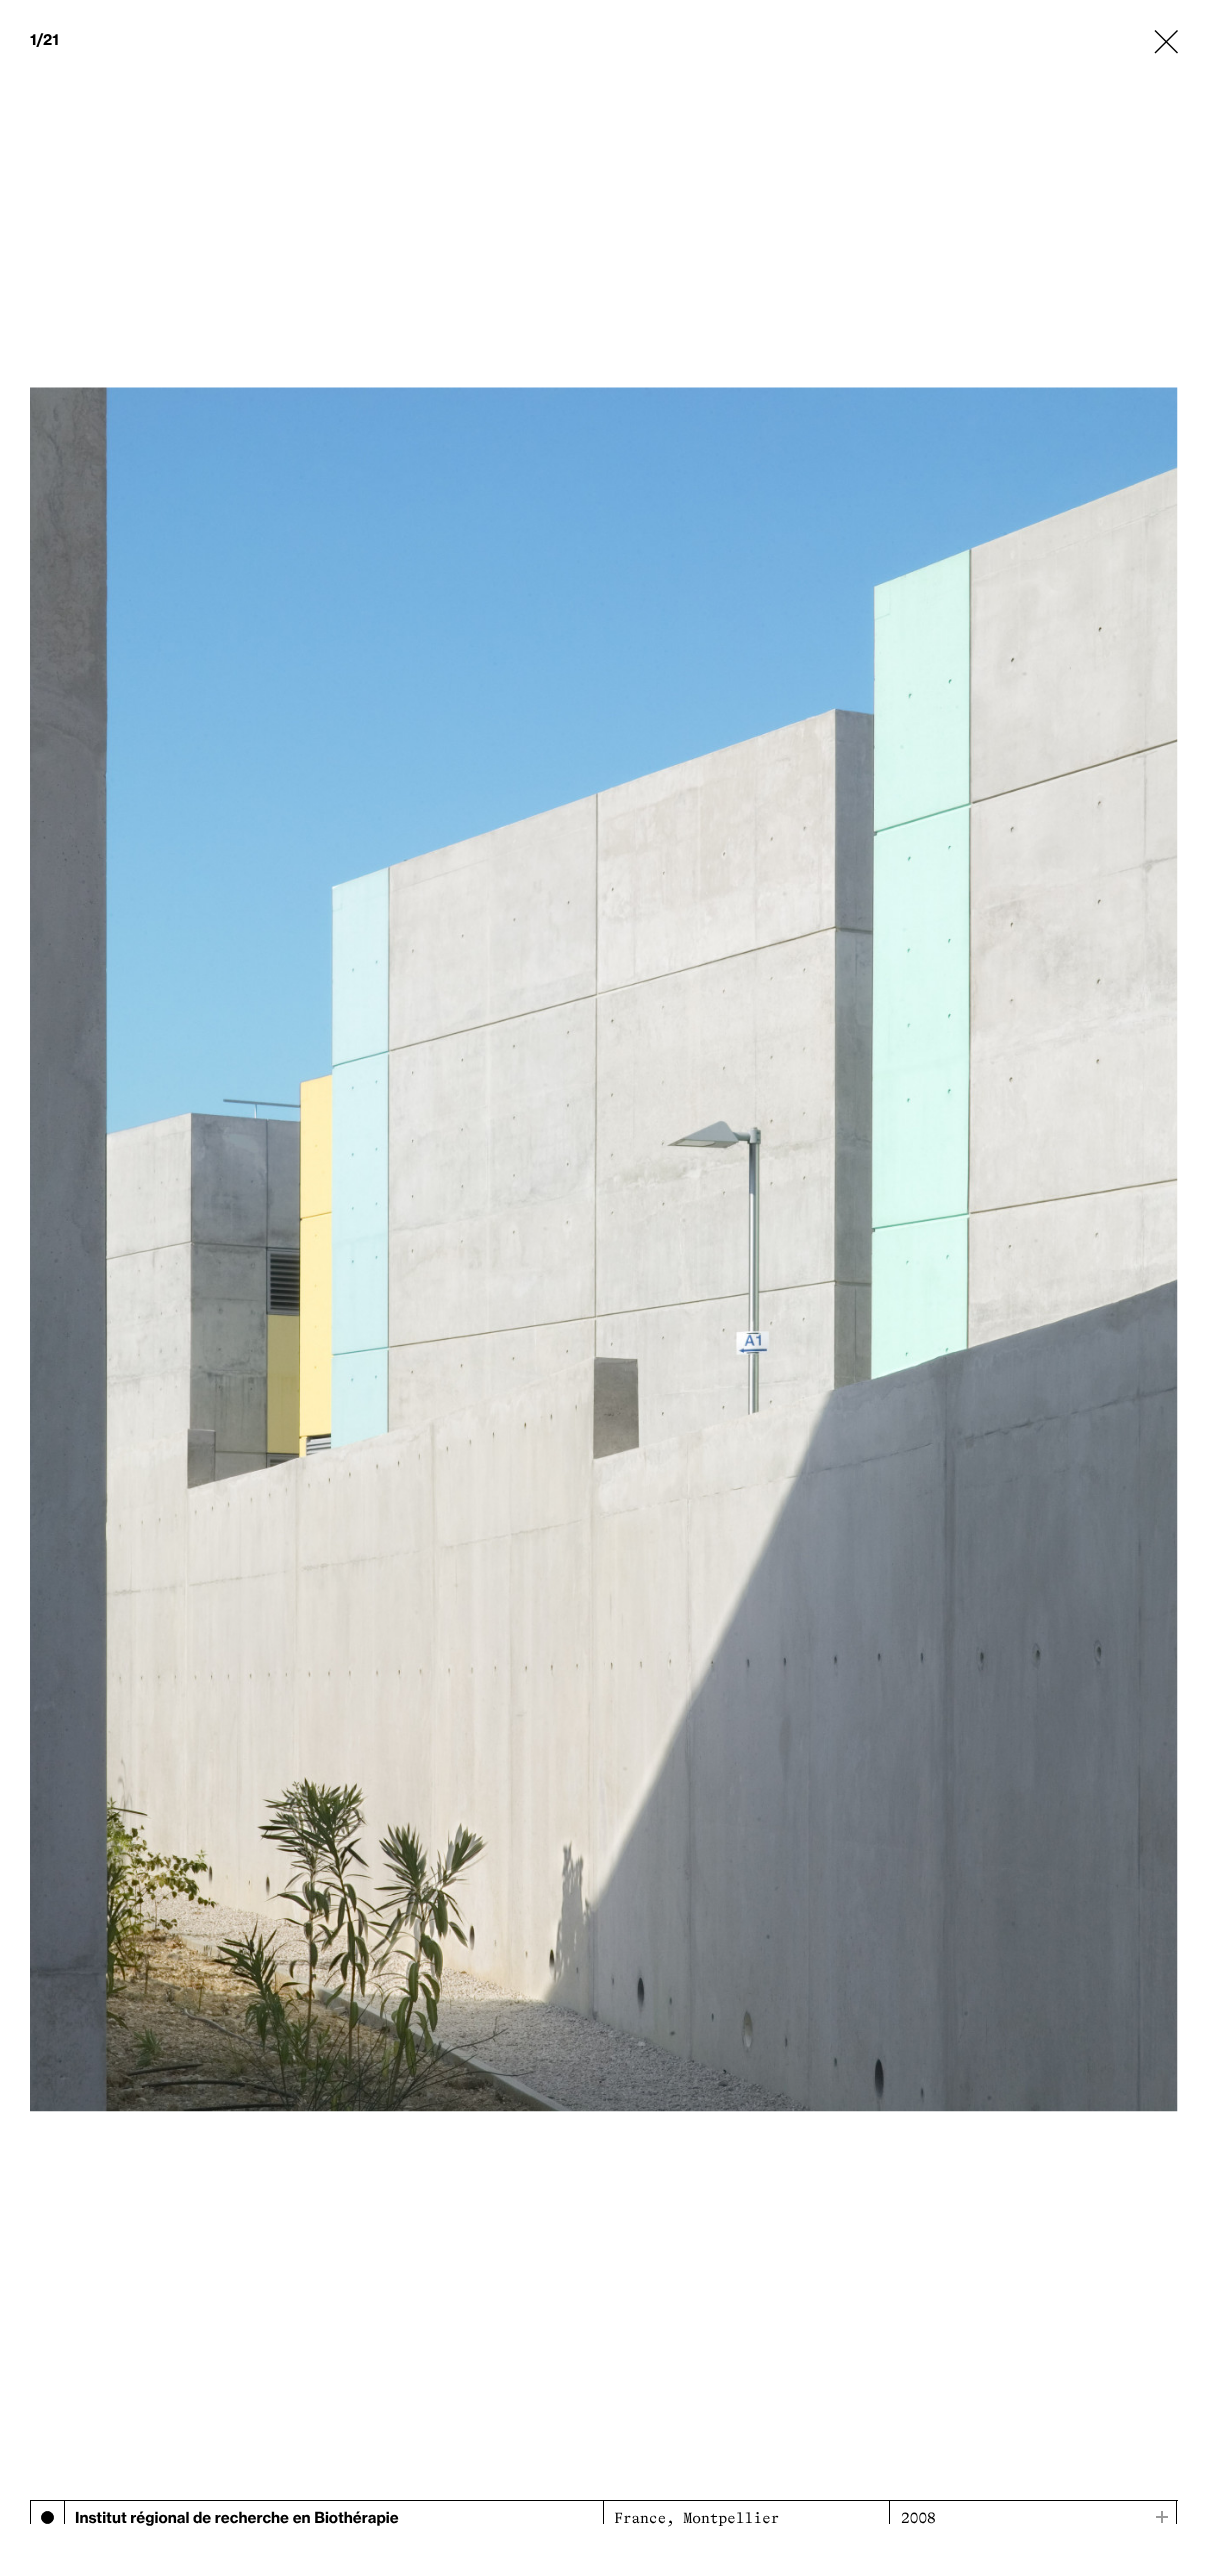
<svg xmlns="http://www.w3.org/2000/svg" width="1207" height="2553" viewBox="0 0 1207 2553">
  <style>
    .t1 { font: bold 15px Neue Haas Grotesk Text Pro; fill: #000; }
    .t2 { font: 15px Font; fill: #000; }
  </style>
  <rect width="100%" height="100%" fill="#fff"/>
  <text x="30" y="45" class="t1">1/21</text>
  <path d="M1155.5 30L1178 52.5L1177 53.5L1154.5 31Z" fill="#000"/>
  <path d="M1154.5 52.5L1177 30L1178 31L1155.5 53.5Z" fill="#000"/>
  <image x="30" y="387" width="1148" height="1725" href="images/1.png"/>
  <rect x="30" y="2500" width="1" height="24" fill="#000"/>
  <rect x="64" y="2500" width="1" height="24" fill="#000"/>
  <rect x="603" y="2500" width="1" height="24" fill="#000"/>
  <rect x="889" y="2500" width="1" height="24" fill="#000"/>
  <rect x="1176" y="2500" width="1" height="24" fill="#000"/>
  <rect x="30" y="2500" width="1148" height="1" fill="#000"/>
  <circle cx="47.5" cy="2517.5" r="6" fill="#000" stroke="#000"/>
  <text x="75" y="2523" class="t1">Institut régional de recherche en Biothérapie</text>
  <text x="614" y="2523" class="t2">France, Montpellier</text>
  <text x="901" y="2523" class="t2">2008</text>
  <rect x="1161" y="2511" width="2" height="12" fill="#999"/>
  <rect x="1156" y="2516" width="12" height="2" fill="#999"/>
</svg>
